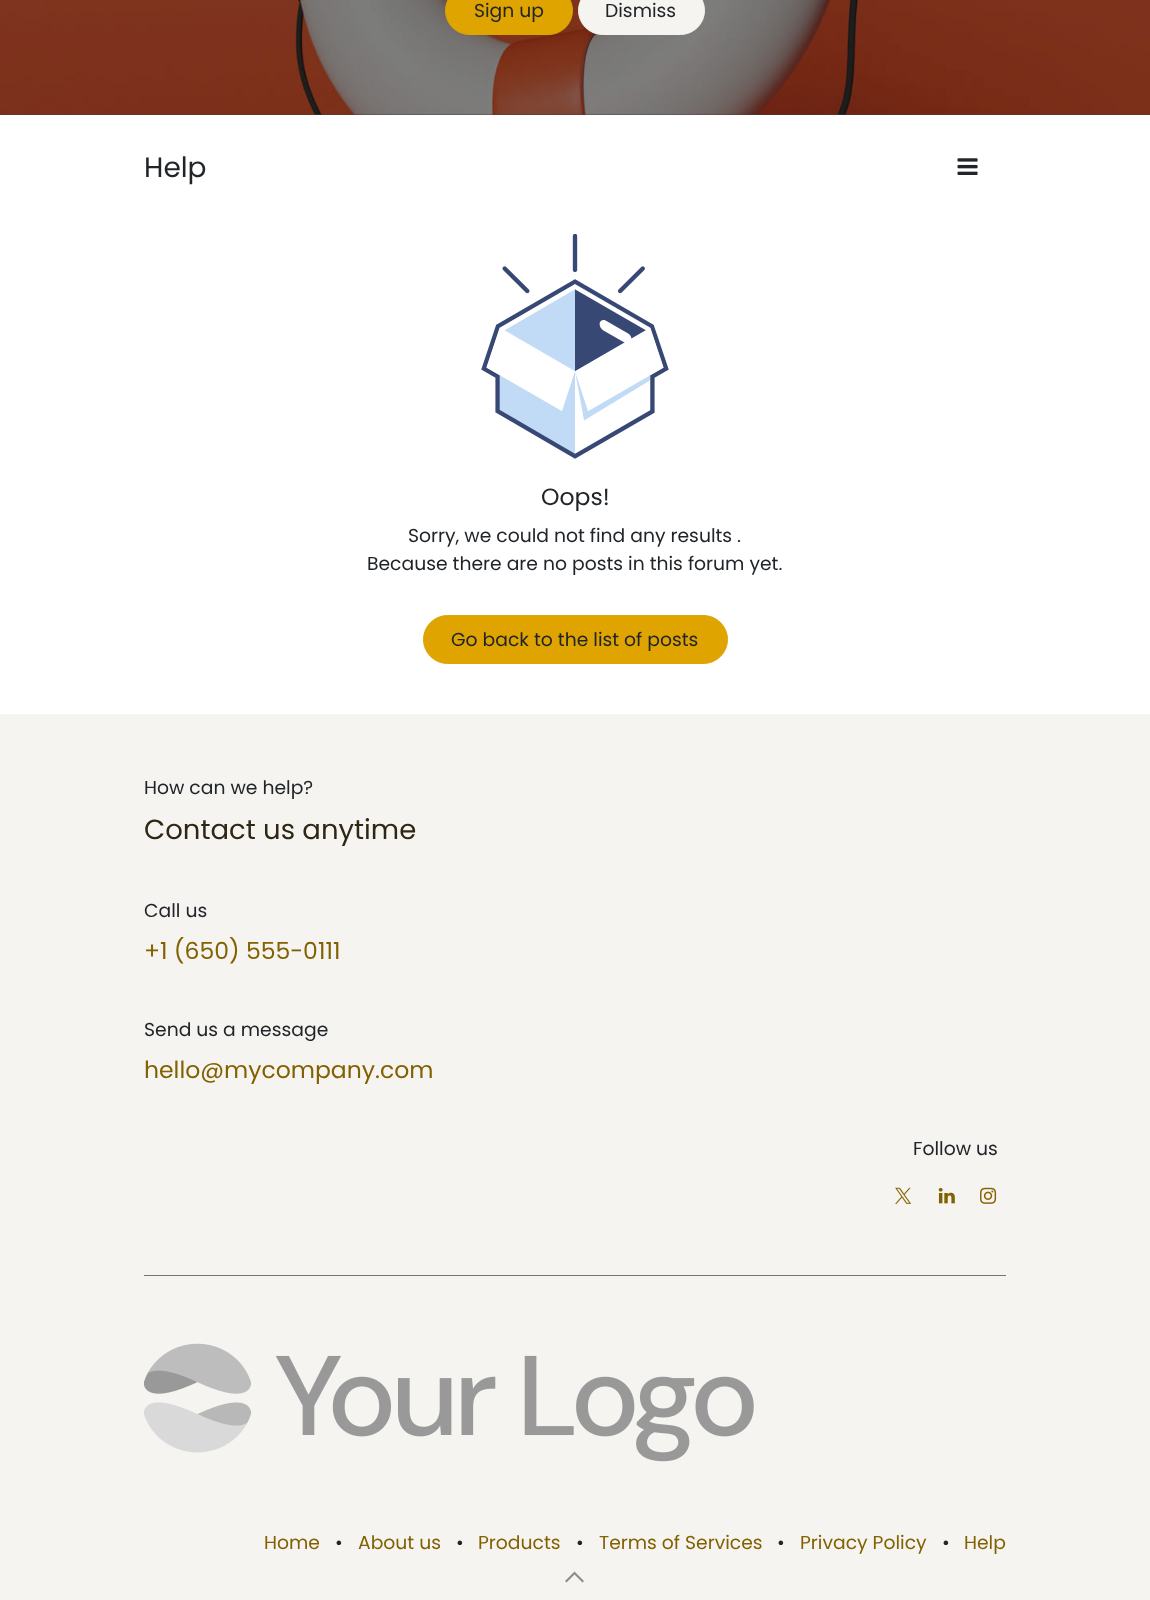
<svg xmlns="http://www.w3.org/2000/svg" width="1150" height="1600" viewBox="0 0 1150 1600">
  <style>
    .t1 { font: 18.75px Poppins; fill: #212529; }
    .t2 { font: 28px Poppins; fill: #212529; }
    .t3 { font: 23.5px Poppins; fill: #212529; }
    .t4 { font: 27.5px Poppins; fill: #2e2714; }
    .t5 { font: 23.5px Poppins; fill: #836000; }
    .t6 { font: 18.75px Poppins; fill: #836000; }
  </style>
  <rect width="100%" height="100%" fill="#fff"/>
  <rect x="0" y="114" width="1150" height="1" fill="#404040"/>
  <image x="0" y="0" width="1150" height="115" href="images/1.png"/>
  <rect x="445.5" y="-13.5" width="127" height="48" rx="24" fill="#dfa400" stroke="#dfa400"/>
  <text x="474" y="17" class="t1">Sign up</text>
  <rect x="578.5" y="-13.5" width="126" height="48" rx="24" fill="#f5f4f0" stroke="#f5f4f0"/>
  <text x="605" y="17" class="t1">Dismiss</text>
  <text x="144" y="177" class="t2">Help</text>
  <image x="957" y="158" width="21" height="17" href="images/2.png"/>
  <image x="481" y="234" width="188" height="225" href="images/3.png"/>
  <text x="541" y="505" class="t3">Oops!</text>
  <text x="408" y="542" class="t1">Sorry, we could not find any results .</text>
  <text x="367" y="570" class="t1">Because there are no posts in this forum yet.</text>
  <rect x="423.5" y="615.5" width="304" height="48" rx="24" fill="#dfa400" stroke="#dfa400"/>
  <text x="451" y="646" class="t1">Go back to the list of posts</text>
  <rect x="0" y="714" width="1150" height="886" fill="#f5f4f0"/>
  <text x="144" y="794" class="t1">How can we help?</text>
  <text x="144" y="839" class="t4">Contact us anytime</text>
  <text x="144" y="917" class="t1">Call us</text>
  <text x="144" y="959" class="t5">+1 (650) 555-0111</text>
  <text x="144" y="1036" class="t1">Send us a message</text>
  <text x="144" y="1078" class="t5">hello@mycompany.com</text>
  <text x="913" y="1155" class="t1">Follow us</text>
  <image x="895" y="1187" width="17" height="17" href="images/4.png"/>
  <image x="938" y="1188" width="17" height="16" href="images/5.png"/>
  <image x="980" y="1187" width="17" height="17" href="images/6.png"/>
  <rect x="144" y="1275" width="862" height="1" fill="#6c757d"/>
  <image x="144" y="1343" width="610" height="119" href="images/7.png"/>
  <text x="264" y="1549" class="t6">Home</text>
  <text x="335" y="1549" class="t1">•</text>
  <text x="358" y="1549" class="t6">About us</text>
  <text x="456" y="1549" class="t1">•</text>
  <text x="478" y="1549" class="t6">Products</text>
  <text x="576" y="1549" class="t1">•</text>
  <text x="599" y="1549" class="t6">Terms of Services</text>
  <text x="777" y="1549" class="t1">•</text>
  <text x="800" y="1549" class="t6">Privacy Policy</text>
  <text x="942" y="1549" class="t1">•</text>
  <text x="964" y="1549" class="t6">Help</text>
  <path d="M574.5 1571.5L584 1581L582.5 1582.5L574.5 1574.5L566.5 1582.5L565 1581Z" fill="#8b8d8d"/>
</svg>
